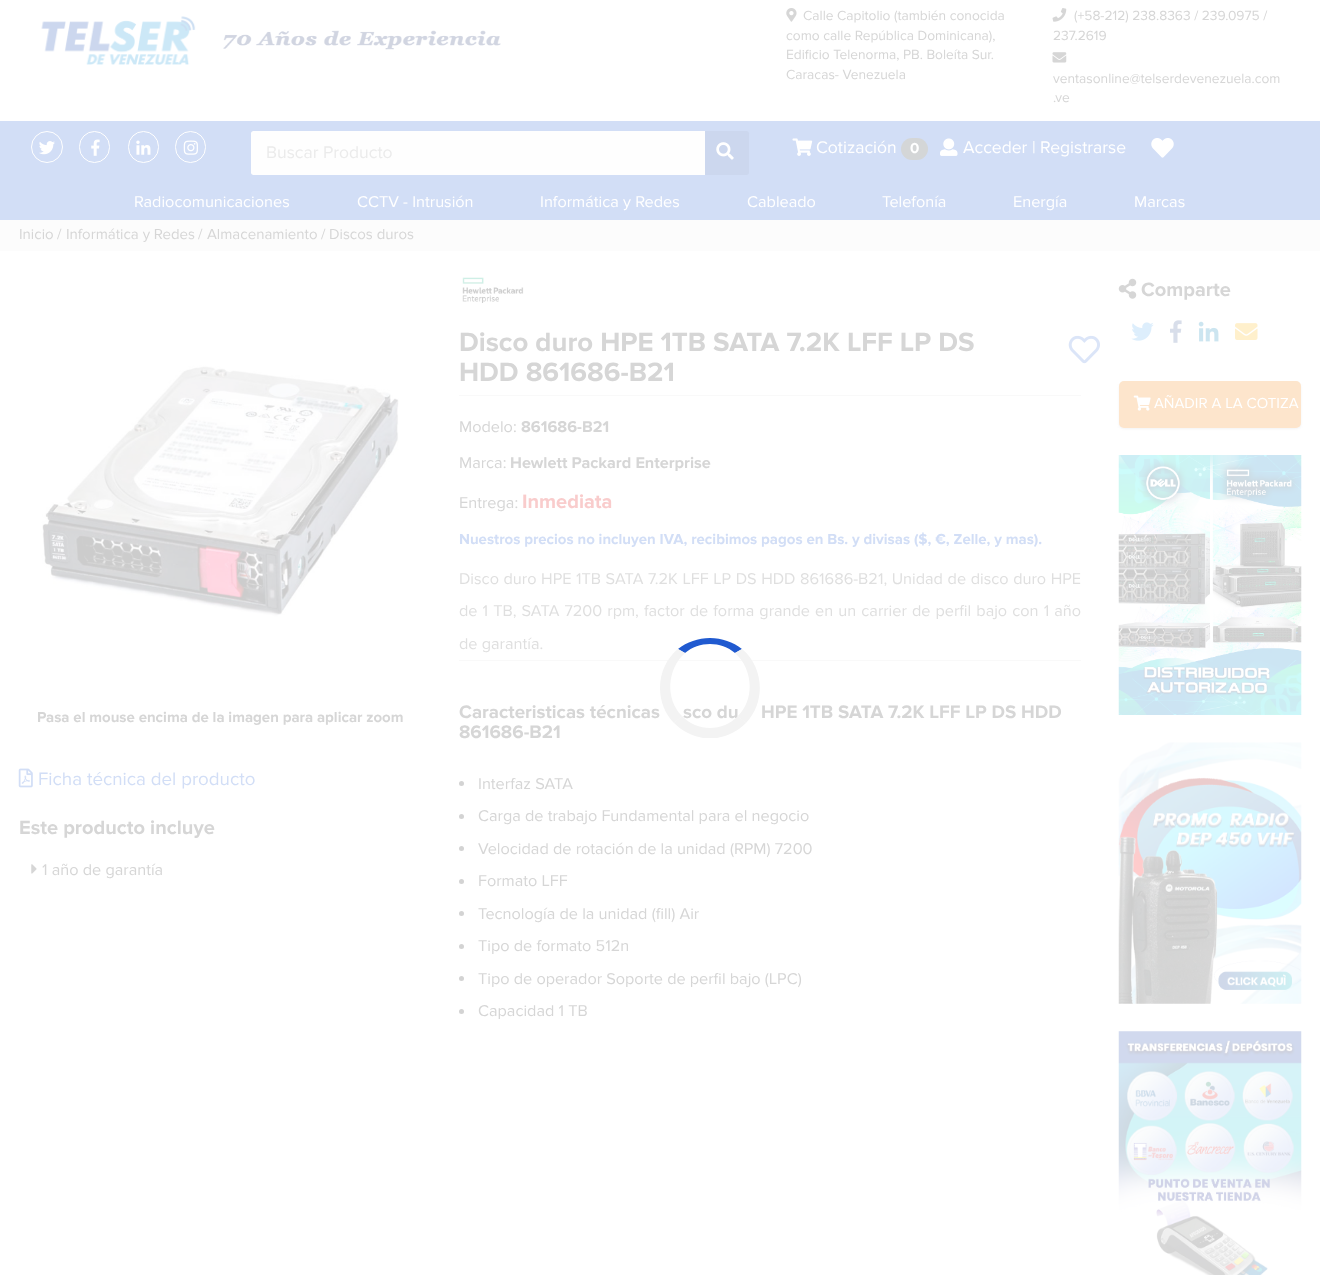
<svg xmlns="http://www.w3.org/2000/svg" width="1320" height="1275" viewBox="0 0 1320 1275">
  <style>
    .t1 { font: 13.75px Proxima Nova; fill: #d6d6d6; }
    .t2 { font: 17.5px Proxima Nova; fill: #ebebeb; }
    .t3 { font: 17.5px Proxima Nova; fill: #fff; }
    .t4 { font: bold 15px Proxima Nova; fill: #fff; }
    .t5 { font: 16.25px Proxima Nova; fill: #fff; }
    .t6 { font: 15px Proxima Nova; fill: #d6d6d6; }
    .t7 { font: bold 15px Proxima Nova; fill: #d6d6d6; }
    .t8 { font: 18.75px Proxima Nova; fill: #d2def6; }
    .t9 { font: bold 20px Proxima Nova; fill: #d6d6d6; }
    .t10 { font: 16.25px Proxima Nova; fill: #d6d6d6; }
    .t11 { font: bold 27.5px Proxima Nova; fill: #d6d6d6; }
    .t12 { font: bold 16.25px Proxima Nova; fill: #d6d6d6; }
    .t13 { font: bold 20px Proxima Nova; fill: #f9cccc; }
    .t14 { font: bold 15px Proxima Nova; fill: #d2def6; }
    .t15 { font: 16.25px Proxima Nova; fill: #dfdfdf; }
    .t16 { font: bold 18.75px Proxima Nova; fill: #d6d6d6; }
    .t17 { font: 15px Proxima Nova; fill: #fff; }
  </style>
  <rect width="100%" height="100%" fill="#fff"/>
  <image x="41" y="16" width="155" height="49" href="images/1.png"/>
  <image x="223" y="30" width="278" height="20" href="images/2.png"/>
  <image x="786" y="8" width="11" height="14" href="images/3.png"/>
  <text x="803" y="20" class="t1">Calle Capitolio (también conocida</text>
  <text x="786" y="40" class="t1">como calle República Dominicana),</text>
  <text x="786" y="59" class="t1">Edificio Telenorma, PB. Boleíta Sur.</text>
  <text x="786" y="79" class="t1">Caracas- Venezuela</text>
  <image x="1052" y="8" width="15" height="14" href="images/4.png"/>
  <text x="1074" y="20" class="t1">(+58-212) 238.8363 / 239.0975 /</text>
  <text x="1053" y="40" class="t1">237.2619</text>
  <image x="1052" y="52" width="15" height="11" href="images/5.png"/>
  <text x="1053" y="83" class="t1">ventasonline@telserdevenezuela.com</text>
  <text x="1053" y="102" class="t1">.ve</text>
  <rect x="0" y="121" width="1320" height="99" fill="#d2def6"/>
  <circle cx="47" cy="147" r="15.5" fill="none" stroke="#fff"/>
  <image x="39" y="141" width="16" height="14" href="images/6.png"/>
  <rect x="79.5" y="131.5" width="30" height="31" rx="15" fill="none" stroke="#fff"/>
  <image x="91" y="139" width="9" height="17" href="images/7.png"/>
  <rect x="128.5" y="131.5" width="30" height="31" rx="15" fill="none" stroke="#fff"/>
  <image x="136" y="140" width="15" height="15" href="images/8.png"/>
  <rect x="175.5" y="131.5" width="30" height="31" rx="15" fill="none" stroke="#fff"/>
  <image x="183" y="140" width="15" height="15" href="images/9.png"/>
  <path d="M253.5 131H705V175H253.5C252 175 251 174 251 172.5V133.5C251 132 252 131 253.5 131Z" fill="#fefefe"/>
  <text x="266" y="158" class="t2">Buscar Producto</text>
  <path d="M705 131H746.5C748 131 749 132 749 133.5V172.5C749 174 748 175 746.5 175H705Z" fill="#ccd7ee"/>
  <image x="716" y="142" width="18" height="18" href="images/10.png"/>
  <image x="792" y="138" width="21" height="18" href="images/11.png"/>
  <text x="816" y="153" class="t3">Cotización</text>
  <rect x="901" y="138" width="27" height="22" rx="11" fill="#d4d6d7"/>
  <text x="910" y="153" class="t4">0</text>
  <image x="940" y="138" width="18" height="18" href="images/12.png"/>
  <text x="963" y="153" class="t3">Acceder | Registrarse</text>
  <image x="1151" y="138" width="23" height="20" href="images/13.png"/>
  <text x="134" y="207" class="t5">Radiocomunicaciones</text>
  <text x="357" y="207" class="t5">CCTV - Intrusión</text>
  <text x="540" y="207" class="t5">Informática y Redes</text>
  <text x="747" y="207" class="t5">Cableado</text>
  <text x="882" y="207" class="t5">Telefonía</text>
  <text x="1013" y="207" class="t5">Energía</text>
  <text x="1134" y="207" class="t5">Marcas</text>
  <rect x="0" y="220" width="1320" height="31" fill="#fcfcfc"/>
  <text x="19" y="239" class="t6">Inicio</text>
  <text x="57" y="239" class="t6">/</text>
  <text x="66" y="239" class="t6">Informática y Redes</text>
  <text x="198" y="239" class="t6">/</text>
  <text x="207" y="239" class="t6">Almacenamiento</text>
  <text x="321" y="239" class="t6">/</text>
  <text x="329" y="239" class="t6">Discos duros</text>
  <image x="41" y="365" width="358" height="252" href="images/14.png"/>
  <text x="37" y="722" class="t7">Pasa el mouse encima de la imagen para aplicar zoom</text>
  <image x="18" y="768" width="15" height="20" href="images/15.png"/>
  <text x="38" y="785" class="t8">Ficha técnica del producto</text>
  <text x="19" y="834" class="t9">Este producto incluye</text>
  <image x="31" y="864" width="6" height="10" href="images/16.png"/>
  <text x="42" y="875" class="t10">1 año de garantía</text>
  <image x="462" y="277" width="62" height="26" href="images/17.png"/>
  <rect x="459" y="395" width="622" height="1" fill="#f9f9f9"/>
  <text x="459" y="351" class="t11">Disco duro HPE 1TB SATA 7.2K LFF LP DS</text>
  <text x="459" y="381" class="t11">HDD 861686-B21</text>
  <image x="1068" y="335" width="32" height="29" href="images/18.png"/>
  <text x="459" y="432" class="t10">Modelo:</text>
  <text x="521" y="432" class="t12">861686-B21</text>
  <text x="459" y="468" class="t10">Marca:</text>
  <text x="510" y="468" class="t12">Hewlett Packard Enterprise</text>
  <text x="459" y="508" class="t10">Entrega:</text>
  <text x="522" y="508" class="t13">Inmediata</text>
  <text x="459" y="544" class="t14">Nuestros precios no incluyen IVA, recibimos pagos en Bs. y divisas ($, €, Zelle, y mas).</text>
  <rect x="459" y="660" width="622" height="1" fill="#f9f9f9"/>
  <text x="459" y="584" word-spacing="0.4" class="t15">Disco duro HPE 1TB SATA 7.2K LFF LP DS HDD 861686-B21, Unidad de disco duro HPE</text>
  <text x="459" y="616" word-spacing="0.9" class="t15">de 1 TB, SATA 7200 rpm, factor de forma grande en un carrier de perfil bajo con 1 año</text>
  <text x="459" y="649" class="t15">de garantía.</text>
  <text x="459" y="718" class="t16">Caracteristicas técnicas</text>
  <text x="683" y="718" class="t16">sco du</text>
  <text x="761" y="718" class="t16">HPE 1TB SATA 7.2K LFF LP DS HDD</text>
  <text x="459" y="738" class="t16">861686-B21</text>
  <circle cx="461.5" cy="783.5" r="2.5" fill="#d3d3d3"/>
  <text x="478" y="789" class="t10">Interfaz SATA</text>
  <circle cx="461.5" cy="816.5" r="2.5" fill="#d3d3d3"/>
  <text x="478" y="821" class="t10">Carga de trabajo Fundamental para el negocio</text>
  <circle cx="461.5" cy="848.5" r="2.5" fill="#d3d3d3"/>
  <text x="478" y="854" class="t10">Velocidad de rotación de la unidad (RPM) 7200</text>
  <circle cx="461.5" cy="881.5" r="2.5" fill="#d3d3d3"/>
  <text x="478" y="886" class="t10">Formato LFF</text>
  <circle cx="461.5" cy="913.5" r="2.5" fill="#d3d3d3"/>
  <text x="478" y="919" class="t10">Tecnología de la unidad (fill) Air</text>
  <circle cx="461.5" cy="946.5" r="2.5" fill="#d3d3d3"/>
  <text x="478" y="951" class="t10">Tipo de formato 512n</text>
  <circle cx="461.5" cy="978.5" r="2.5" fill="#d3d3d3"/>
  <text x="478" y="984" class="t10">Tipo de operador Soporte de perfil bajo (LPC)</text>
  <circle cx="461.5" cy="1011.5" r="2.5" fill="#d3d3d3"/>
  <text x="478" y="1016" class="t10">Capacidad 1 TB</text>
  <image x="1118" y="278" width="19" height="21" href="images/19.png"/>
  <text x="1141" y="296" class="t9">Comparte</text>
  <image x="1131" y="322" width="23" height="19" href="images/20.png"/>
  <image x="1170" y="320" width="12" height="23" href="images/21.png"/>
  <image x="1198" y="321" width="21" height="21" href="images/22.png"/>
  <image x="1235" y="323" width="23" height="17" href="images/23.png"/>
  <rect x="1119" y="383" width="182" height="46" rx="5" fill="#cccccc3d" filter="blur(1px)"/>
  <rect x="1119" y="381" width="182" height="47" rx="5" fill="#fde5cc"/>
  <image x="1133" y="395" width="18" height="16" href="images/24.png"/>
  <text x="1154" y="408" class="t17">AÑADIR A LA COTIZA</text>
  <image x="1118" y="455" width="184" height="260" href="images/25.png"/>
  <image x="1118" y="742" width="184" height="262" href="images/26.png"/>
  <image x="1118" y="1031" width="184" height="244" href="images/27.png"/>
  <path d="M710 638C698 638 687 642 678 649L685 653C699 641 721 641 735 653L742 649C733 642 722 638 710 638Z" fill="#205ad0"/>
  <path d="M742 649C764 667 766 702 746 723L738 716C755 699 753 669 735 653Z" fill="#f3f3f3"/>
  <path d="M703 738C692 736 682 731 674 723L682 716C697 732 723 732 738 716L746 723C738 731 728 736 717 738Z" fill="#f3f3f3"/>
  <path d="M660 688C660 701 665 714 674 723L682 716C665 699 667 669 685 653L678 649C667 658 660 672 660 688Z" fill="#f3f3f3"/>
</svg>
